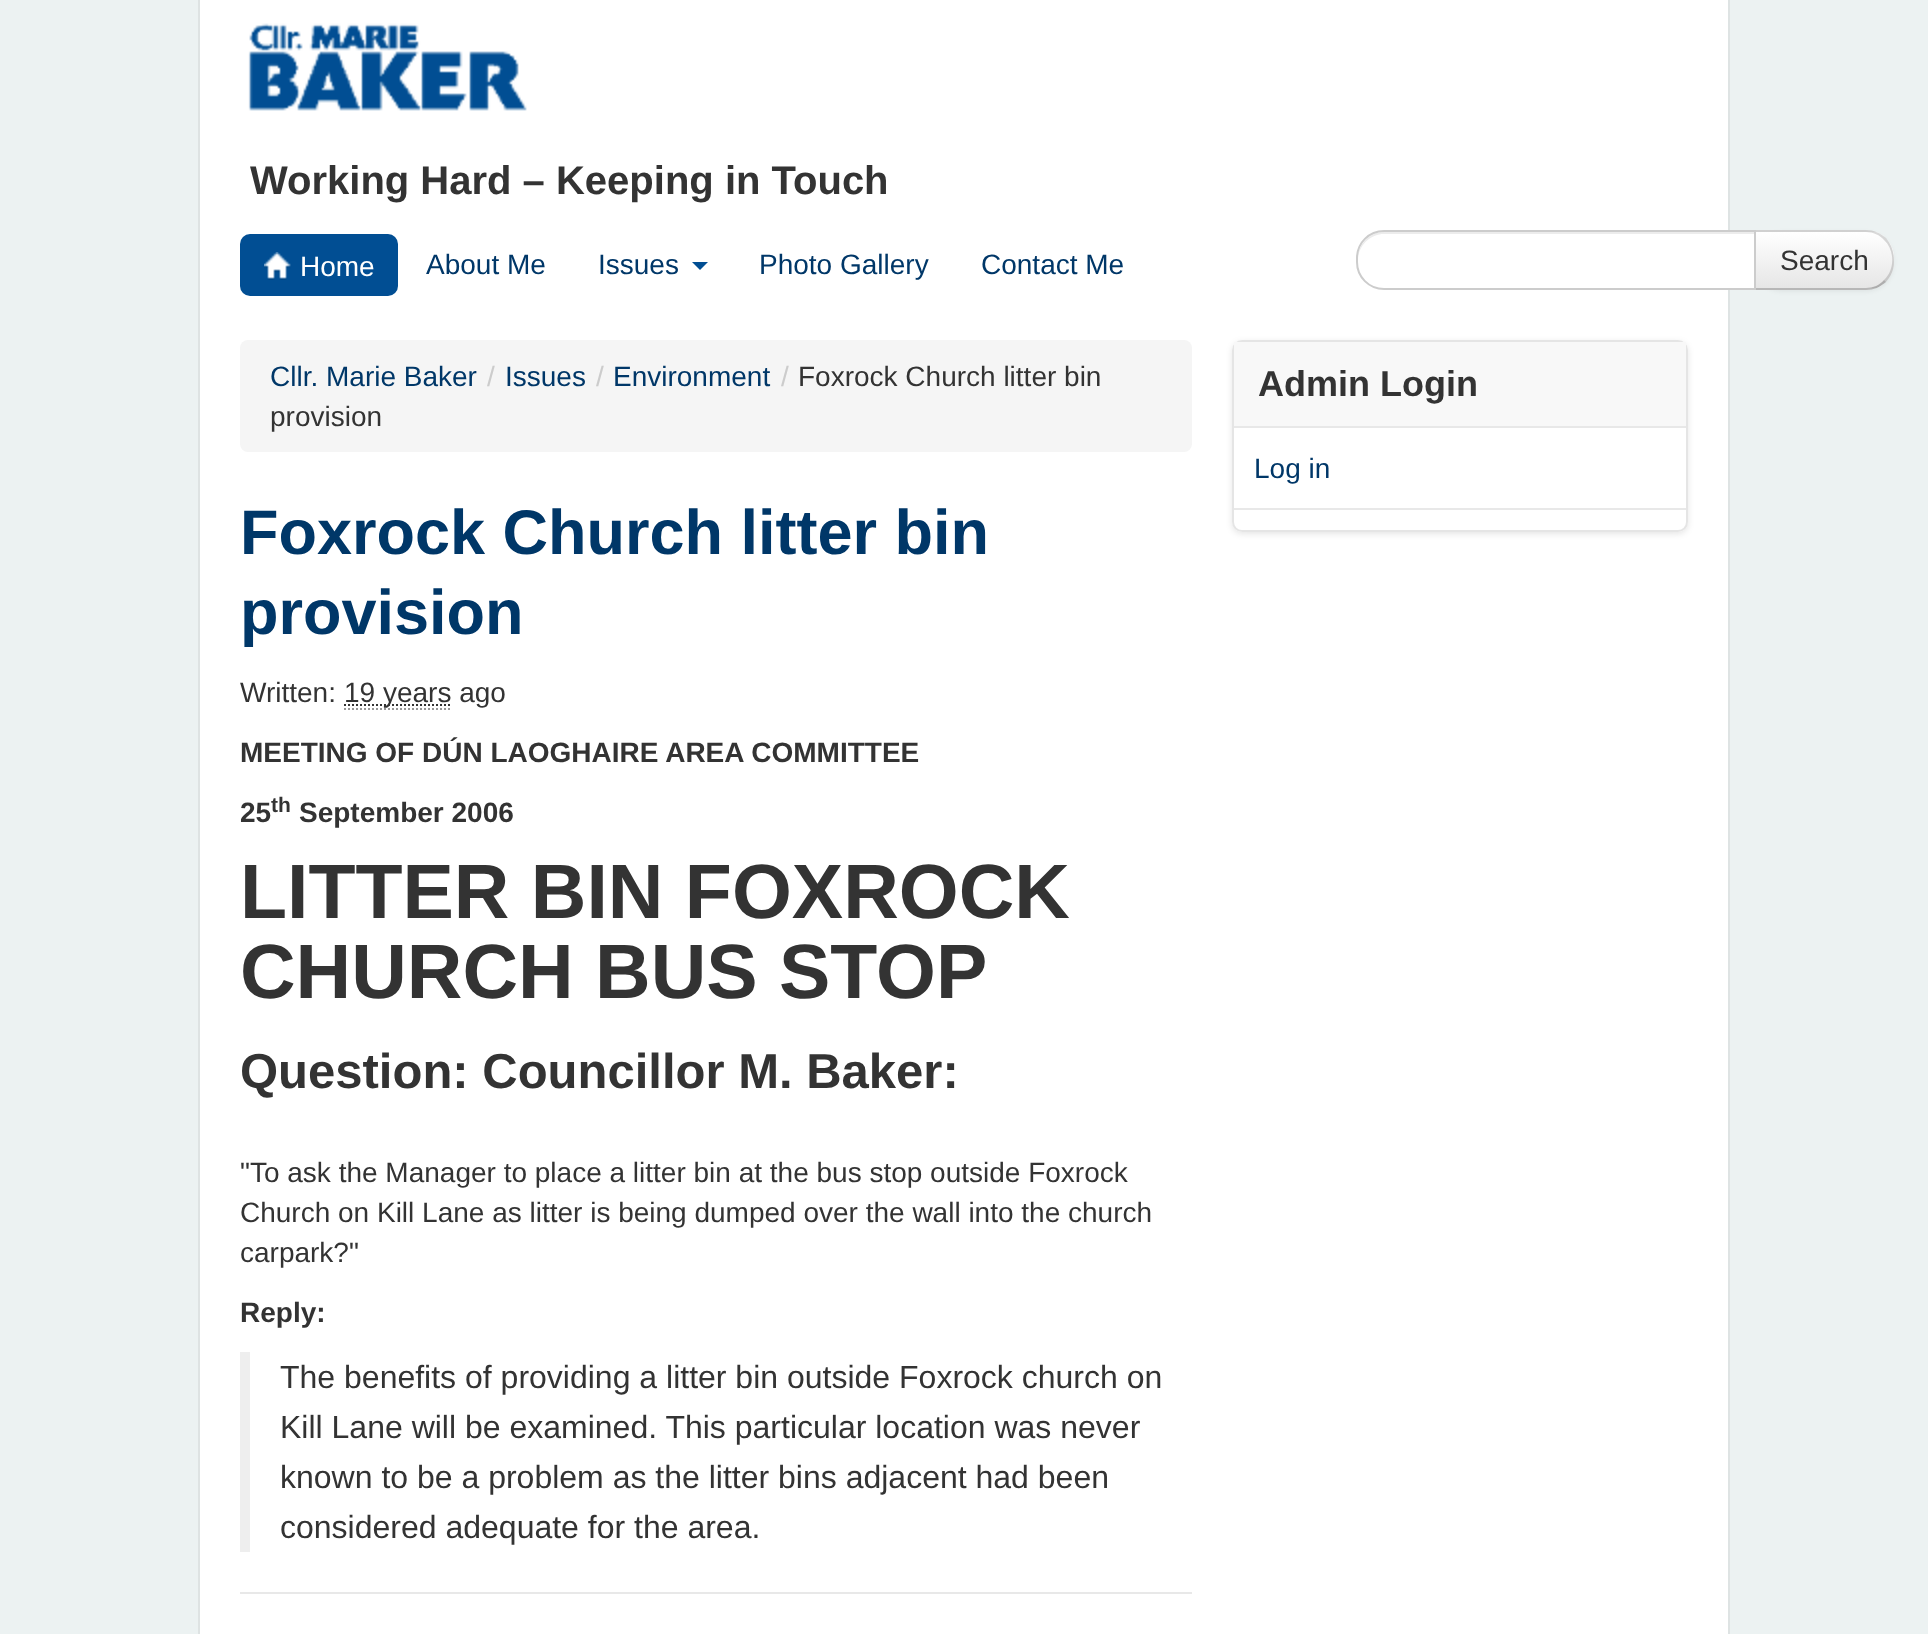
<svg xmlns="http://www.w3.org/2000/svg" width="1928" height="1634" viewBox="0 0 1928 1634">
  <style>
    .t1 { font: bold 40px Liberation Sans; fill: #333; }
    .t2 { font: 28px Liberation Sans; fill: #fff; }
    .t3 { font: 28px Liberation Sans; fill: #003768; }
    .t4 { font: 28px Liberation Sans; fill: #333; }
    .t5 { font: 28px Liberation Sans; fill: #ccc; }
    .t6 { font: bold 63px Liberation Sans; fill: #003768; }
    .t7 { font: bold 28px Liberation Sans; fill: #333; }
    .t8 { font: bold 21px Liberation Sans; fill: #333; }
    .t9 { font: bold 77px Liberation Sans; fill: #333; }
    .t10 { font: bold 49px Liberation Sans; fill: #333; }
    .t11 { font: 32px Liberation Sans; fill: #333; }
    .t12 { font: bold 36px Liberation Sans; fill: #333; }
  </style>
  <defs>
    <clipPath id="clip1"><path d="M1754 230H1866C1881.5 230 1894 242.5 1894 258V262C1894 277.5 1881.5 290 1866 290H1754Z"/></clipPath>
    <linearGradient id="g1" gradientUnits="userSpaceOnUse" x1="1824" y1="232" x2="1824" y2="288"><stop offset="0" stop-color="#fff"/><stop offset="1" stop-color="#e6e6e6"/></linearGradient>
    <clipPath id="clip2"><path d="M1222 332H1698V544H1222ZM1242 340H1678C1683.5 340 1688 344.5 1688 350V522C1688 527.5 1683.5 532 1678 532H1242C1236.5 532 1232 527.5 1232 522V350C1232 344.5 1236.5 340 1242 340Z" clip-rule="evenodd"/></clipPath>
  </defs>
  <rect width="100%" height="100%" fill="#ecf2f2"/>
  <rect x="200" y="0" width="1528" height="1634" fill="#fff"/>
  <rect x="1728" y="0" width="2" height="1634" fill="#dee3e3"/>
  <rect x="198" y="0" width="2" height="1634" fill="#dee3e3"/>
  <image x="248" y="23" width="279" height="88" href="images/1.png"/>
  <text x="250" y="194" class="t1">Working Hard – Keeping in Touch</text>
  <rect x="240" y="234" width="158" height="62" rx="10" fill="#014e93"/>
  <image x="264" y="252" width="27" height="28" href="images/2.png"/>
  <text x="300" y="276" class="t2">Home</text>
  <text x="426" y="274" class="t3">About Me</text>
  <text x="598" y="274" class="t3">Issues</text>
  <path d="M692 262H708L700 270Z" fill="#014e93"/>
  <text x="759" y="274" class="t3">Photo Gallery</text>
  <text x="981" y="274" class="t3">Contact Me</text>
  <rect x="1754" y="232" width="140" height="60" rx="28" fill="#0000000d" filter="blur(2px)"/>
  <path d="M1754 230H1866C1881.5 230 1894 242.5 1894 258V262C1894 277.5 1881.5 290 1866 290H1754Z" fill="#f5f5f5"/>
  <g clip-path="url(#clip1)">
    <rect x="1756" y="232" width="138" height="56" fill="url(#g1)"/>
  </g>
  <path d="M1754 230L1756 232H1866C1873 232 1880 235 1884 240L1886 238C1880 233 1874 230 1866 230Z" fill="#00000026"/>
  <path d="M1894 262C1894 253 1892 245 1886 238L1884 240C1895 250 1895 270 1884 280L1886 282C1891 276 1894 270 1894 262Z" fill="#00000026"/>
  <path d="M1866 290C1874 290 1880 287 1886 282L1884 280C1880 285 1873 288 1866 288H1756L1754 290Z" fill="#00000040"/>
  <path d="M1384 230H1756V290H1384C1368.5 290 1356 277.5 1356 262V258C1356 242.5 1368.5 230 1384 230Z" fill="#fff"/>
  <path d="M1384 234H1754V232H1384C1370 232 1358 244 1358 258V260C1358 246 1370 234 1384 234Z" fill="#ececec"/>
  <path d="M1384 231H1755V289H1384C1369 289 1357 277 1357 262V258C1357 243 1369 231 1384 231Z" fill="none" stroke="#ccc" stroke-width="2"/>
  <text x="1780" y="270" class="t4">Search</text>
  <rect x="240" y="340" width="952" height="112" rx="8" fill="#f5f5f5"/>
  <text x="270" y="386" class="t3">Cllr. Marie Baker</text>
  <text x="487" y="386" class="t5">/</text>
  <text x="505" y="386" class="t3">Issues</text>
  <text x="596" y="386" class="t5">/</text>
  <text x="613" y="386" class="t3">Environment</text>
  <text x="781" y="386" class="t5">/</text>
  <text x="798" y="386" class="t4">Foxrock Church litter bin</text>
  <text x="270" y="426" class="t4">provision</text>
  <text x="240" y="554" class="t6">Foxrock Church litter bin</text>
  <text x="240" y="634" class="t6">provision</text>
  <text x="240" y="702" class="t4">Written:</text>
  <path d="M344 705H451" fill="none" stroke="#333" stroke-width="2" stroke-dasharray="2 2"/>
  <text x="344" y="702" class="t4">19 years ago</text>
  <path d="M344 709H452" fill="none" stroke="#999" stroke-width="2" stroke-dasharray="2 2"/>
  <text x="240" y="762" class="t7">MEETING OF DÚN LAOGHAIRE AREA COMMITTEE</text>
  <text x="240" y="822" class="t7">25</text>
  <text x="271" y="812" class="t8">th</text>
  <text x="299" y="822" class="t7">September 2006</text>
  <text x="240" y="918" class="t9">LITTER BIN FOXROCK</text>
  <text x="240" y="998" class="t9">CHURCH BUS STOP</text>
  <text x="240" y="1088" class="t10">Question: Councillor M. Baker:</text>
  <text x="240" y="1182" class="t4">"To ask the Manager to place a litter bin at the bus stop outside Foxrock</text>
  <text x="240" y="1222" class="t4">Church on Kill Lane as litter is being dumped over the wall into the church</text>
  <text x="240" y="1262" class="t4">carpark?"</text>
  <text x="240" y="1322" class="t7">Reply:</text>
  <rect x="240" y="1352" width="10" height="200" fill="#eee"/>
  <text x="280" y="1388" class="t11">The benefits of providing a litter bin outside Foxrock church on</text>
  <text x="280" y="1438" class="t11">Kill Lane will be examined. This particular location was never</text>
  <text x="280" y="1488" class="t11">known to be a problem as the litter bins adjacent had been</text>
  <text x="280" y="1538" class="t11">considered adequate for the area.</text>
  <rect x="240" y="1592" width="952" height="2" fill="#e8e8e8"/>
  <g clip-path="url(#clip2)">
    <rect x="1232" y="342" width="456" height="192" rx="10" fill="#0000001a" filter="blur(3px)"/>
  </g>
  <rect x="1233" y="341" width="454" height="190" rx="9" fill="none" stroke="#0000001a" stroke-width="2"/>
  <rect x="1234" y="342" width="452" height="84" fill="#f8f8f8"/>
  <rect x="1234" y="426" width="452" height="2" fill="#e8e8e8"/>
  <text x="1258" y="396" class="t12">Admin Login</text>
  <rect x="1234" y="508" width="452" height="2" fill="#e8e8e8"/>
  <text x="1254" y="478" class="t3">Log in</text>
</svg>
